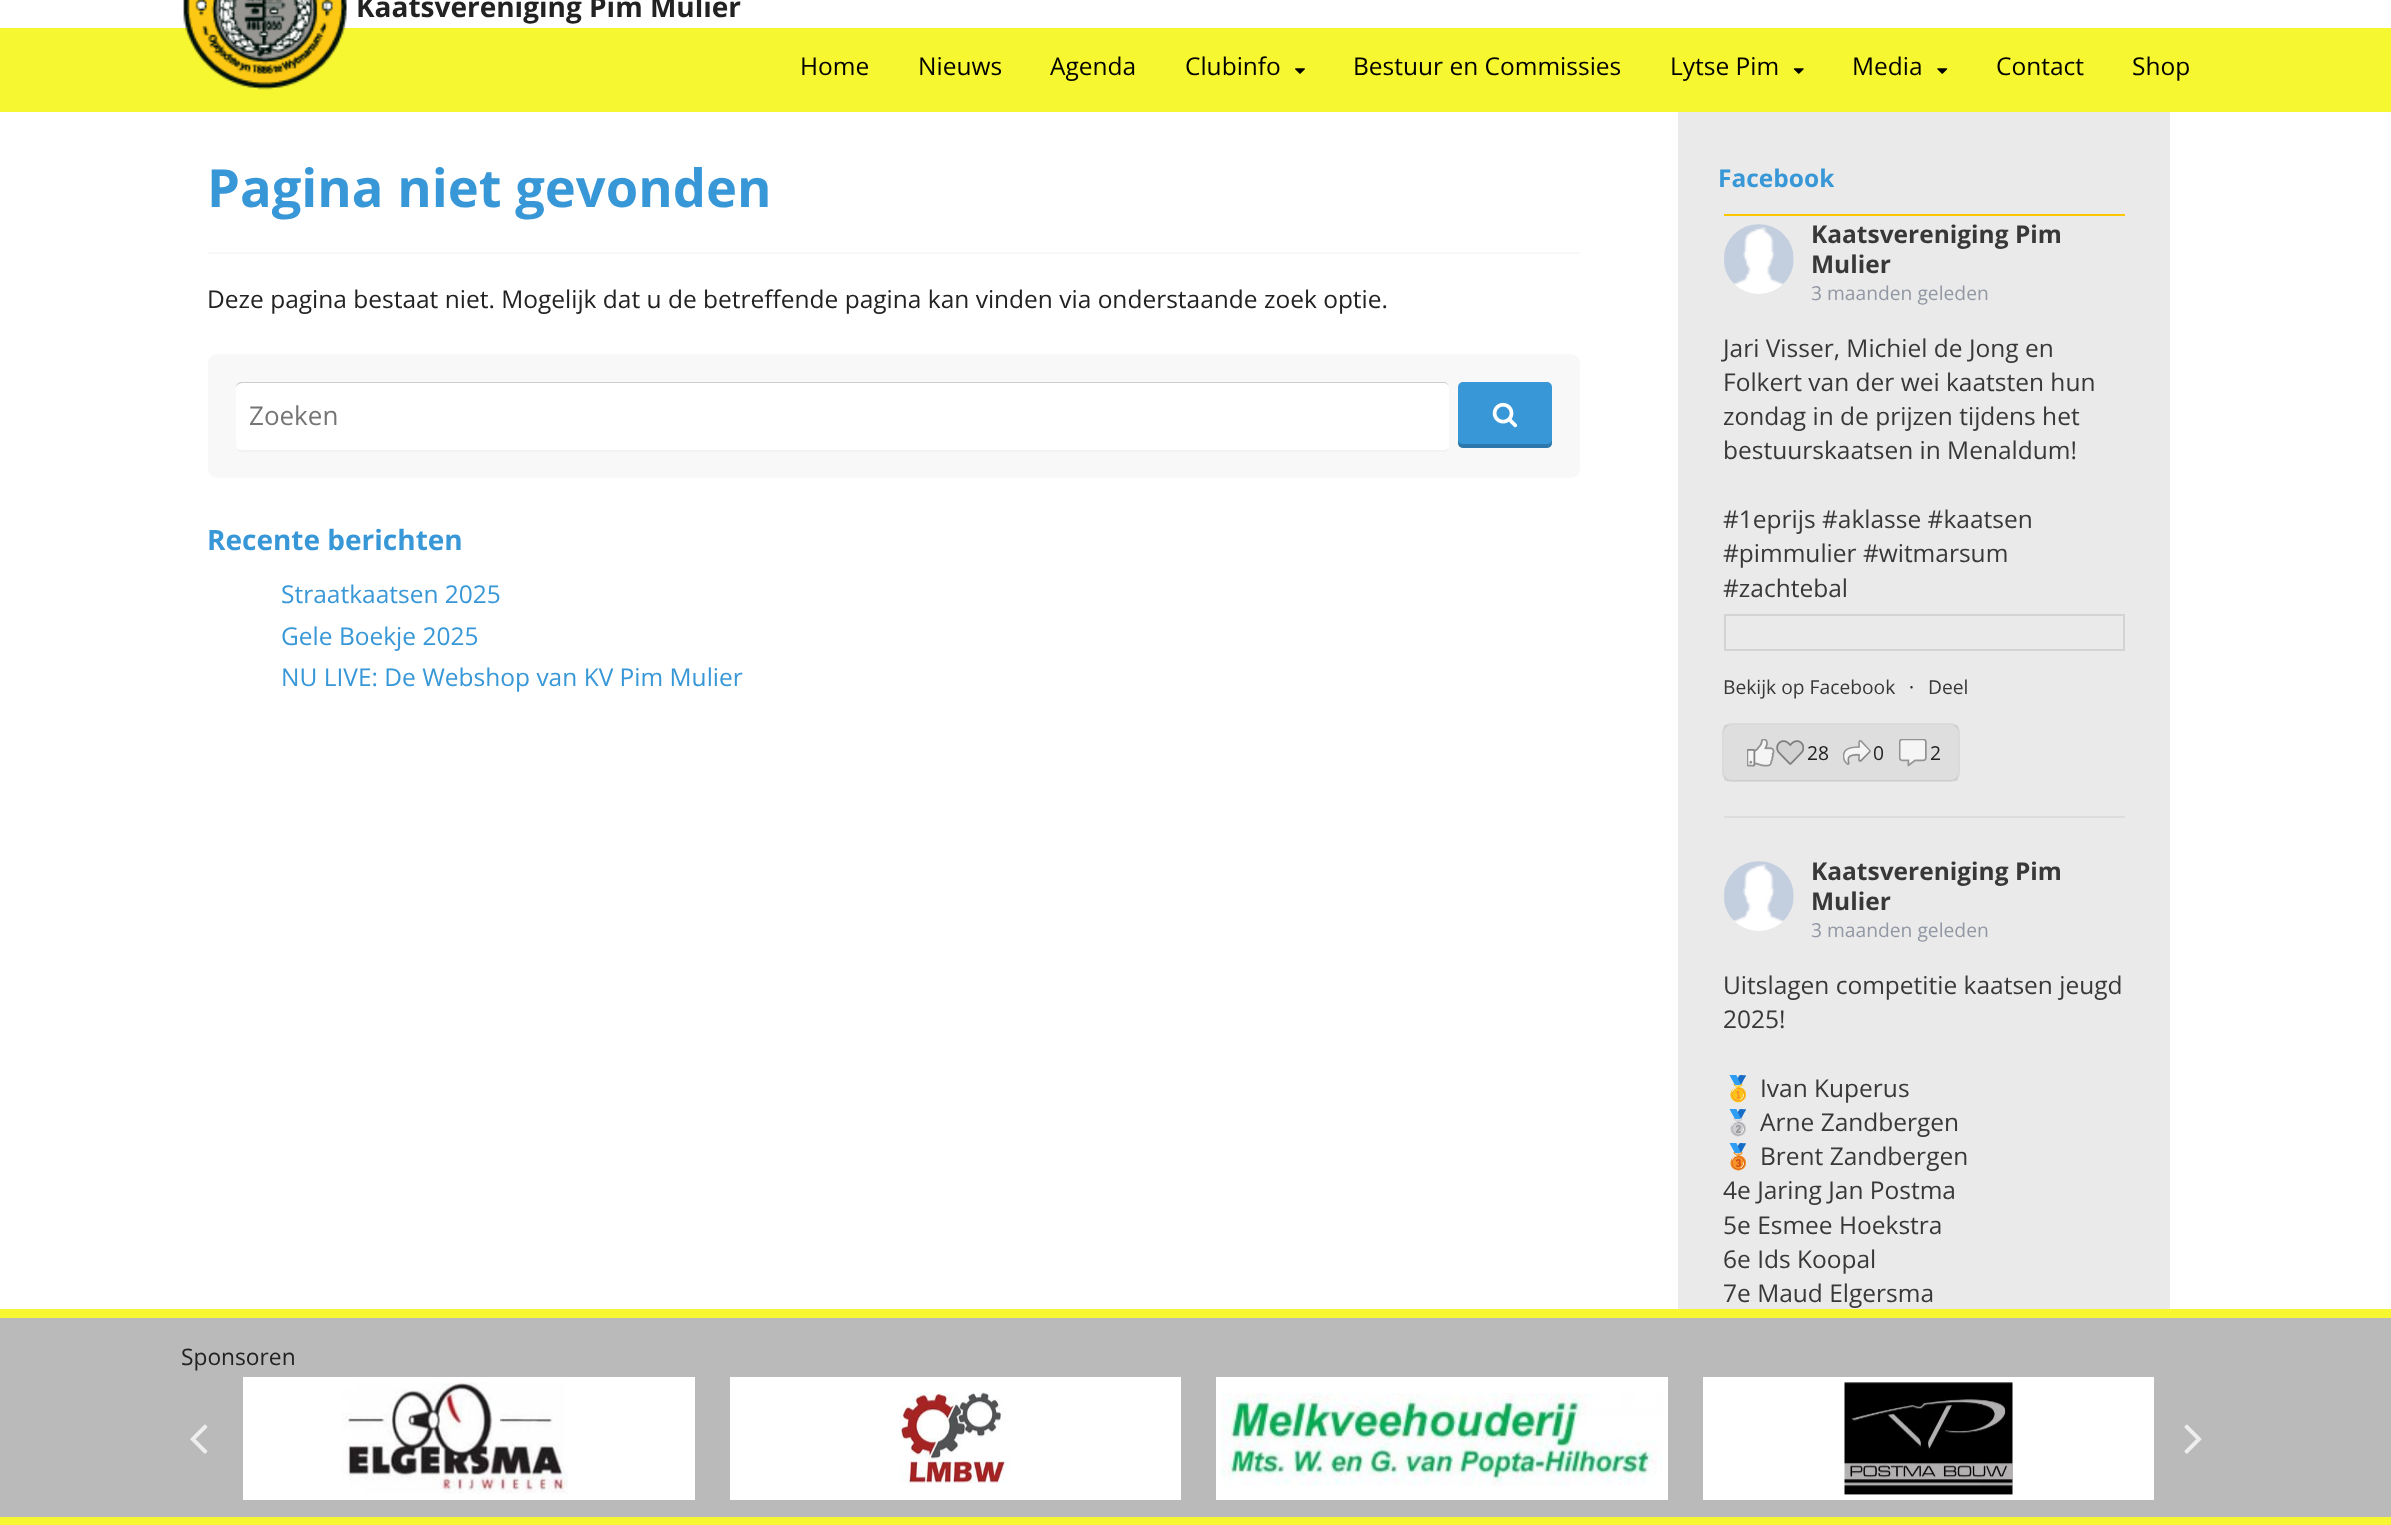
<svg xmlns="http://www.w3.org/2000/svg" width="2391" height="1525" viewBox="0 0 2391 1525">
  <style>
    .t1 { font: bold 28px Open Sans; fill: #222; }
    .t2 { font: 24.5px Open Sans; fill: #000; }
    .t3 { font: bold 52.5px Open Sans; fill: #3897d7; }
    .t4 { font: 24.5px Open Sans; fill: #222; }
    .t5 { font: 26px Open Sans; fill: #757575; }
    .t6 { font: bold 28px Open Sans; fill: #3897d7; }
    .t7 { font: 24.5px Open Sans; fill: #3897d7; }
    .t8 { font: bold 24.5px Open Sans; fill: #3897d7; }
    .t9 { font: bold 24.5px Open Sans; fill: #383838; }
    .t10 { font: 19.25px Open Sans; fill: #9197a3; }
    .t11 { font: 24.5px Open Sans; fill: #383838; }
    .t12 { font: 19.25px Open Sans; fill: #383838; }
    .t13 { font: 19.25px Open Sans; fill: #222; }
    .t14 { font: 24.5px Noto Color Emoji; fill: #383838; }
    .t15 { font: 22.75px Open Sans; fill: #222; }
  </style>
  <rect width="100%" height="100%" fill="#fff"/>
  <rect x="0" y="28" width="2391" height="84" fill="#f7f731"/>
  <image x="183" y="0" width="164" height="90" href="images/1.png"/>
  <text x="356" y="17" class="t1">Kaatsvereniging Pim Mulier</text>
  <text x="800" y="75" class="t2">Home</text>
  <text x="918" y="75" class="t2">Nieuws</text>
  <text x="1050" y="75" class="t2">Agenda</text>
  <text x="1185" y="75" class="t2">Clubinfo</text>
  <image x="1295" y="68" width="10" height="6" href="images/2.png"/>
  <text x="1353" y="75" class="t2">Bestuur en Commissies</text>
  <text x="1670" y="75" class="t2">Lytse Pim</text>
  <image x="1793" y="68" width="11" height="6" href="images/3.png"/>
  <text x="1852" y="75" class="t2">Media</text>
  <image x="1937" y="68" width="11" height="6" href="images/4.png"/>
  <text x="1996" y="75" class="t2">Contact</text>
  <text x="2132" y="75" class="t2">Shop</text>
  <rect x="208" y="252" width="1372" height="2" fill="#f8f8f8"/>
  <text x="207" y="207" class="t3">Pagina niet gevonden</text>
  <text x="207" y="308" class="t4">Deze pagina bestaat niet. Mogelijk dat u de betreffende pagina kan vinden via onderstaande zoek optie.</text>
  <rect x="208" y="354" width="1372" height="124" rx="9" fill="#f8f8f8"/>
  <path d="M236 386V437C236 441 234 452 241 452H1444C1448 452 1449 448 1449 444C1449 447 1447 450 1444 450H242C239 450 236 447 236 444Z" fill="#f2f2f2"/>
  <rect x="236" y="382" width="1213" height="68" rx="5" fill="#fff"/>
  <path d="M242 383H1444C1447 383 1449 386 1449 388C1449 385 1447 382 1444 382H241C238 382 236 385 236 388C236 386 239 383 242 383Z" fill="#ccc"/>
  <text x="249" y="425" class="t5">Zoeken</text>
  <rect x="1458" y="382" width="94" height="66" rx="5" fill="#3897d7"/>
  <path d="M1458 439V443C1458 446 1460 448 1463 448H1547C1550 448 1552 446 1552 443V439C1552 442 1550 444 1547 444H1463C1460 444 1458 442 1458 439Z" fill="#00000033"/>
  <image x="1492" y="402" width="26" height="26" href="images/5.png"/>
  <text x="207" y="550" class="t6">Recente berichten</text>
  <text x="281" y="603" class="t7">Straatkaatsen 2025</text>
  <text x="281" y="645" class="t7">Gele Boekje 2025</text>
  <text x="281" y="686" class="t7">NU LIVE: De Webshop van KV Pim Mulier</text>
  <rect x="1678" y="112" width="492" height="1197" fill="#eaeaea"/>
  <text x="1718" y="187" class="t8">Facebook</text>
  <rect x="1724" y="214" width="401" height="2" fill="#fdc700"/>
  <rect x="1724" y="816" width="401" height="2" fill="#ddd"/>
  <image x="1724" y="224" width="70" height="70" href="images/6.png"/>
  <text x="1811" y="243" class="t9">Kaatsvereniging Pim</text>
  <text x="1811" y="273" class="t9">Mulier</text>
  <text x="1811" y="300" class="t10">3 maanden geleden</text>
  <text x="1723" y="357" class="t11">Jari Visser, Michiel de Jong en</text>
  <text x="1723" y="391" class="t11">Folkert van der wei kaatsten hun</text>
  <text x="1723" y="425" class="t11">zondag in de prijzen tijdens het</text>
  <text x="1723" y="459" class="t11">bestuurskaatsen in Menaldum!</text>
  <text x="1723" y="528" class="t11">#1eprijs #aklasse #kaatsen</text>
  <text x="1723" y="562" class="t11">#pimmulier #witmarsum</text>
  <text x="1723" y="597" class="t11">#zachtebal</text>
  <rect x="1725" y="615" width="399" height="35" fill="none" stroke="#d3d3d3" stroke-width="2"/>
  <text x="1723" y="694" class="t12">Bekijk op Facebook</text>
  <text x="1909" y="694" class="t13">·</text>
  <text x="1928" y="694" class="t12">Deel</text>
  <rect x="1723" y="724" width="236" height="57" rx="8" fill="none" stroke="#dadada" stroke-width="2"/>
  <rect x="1724" y="725" width="234" height="56" fill="#0000000d"/>
  <image x="1747" y="739" width="28" height="28" href="images/7.png"/>
  <image x="1747" y="739" width="28" height="28" href="images/8.png"/>
  <image x="1776" y="740" width="28" height="25" href="images/9.png"/>
  <image x="1776" y="740" width="28" height="25" href="images/10.png"/>
  <text x="1807" y="760" class="t13">28</text>
  <image x="1843" y="740" width="28" height="25" href="images/11.png"/>
  <image x="1843" y="740" width="28" height="25" href="images/12.png"/>
  <text x="1873" y="760" class="t13">0</text>
  <image x="1899" y="739" width="28" height="28" href="images/13.png"/>
  <image x="1899" y="739" width="28" height="28" href="images/14.png"/>
  <text x="1930" y="760" class="t13">2</text>
  <image x="1724" y="861" width="70" height="70" href="images/15.png"/>
  <text x="1811" y="880" class="t9">Kaatsvereniging Pim</text>
  <text x="1811" y="910" class="t9">Mulier</text>
  <text x="1811" y="937" class="t10">3 maanden geleden</text>
  <text x="1723" y="994" class="t11">Uitslagen competitie kaatsen jeugd</text>
  <text x="1723" y="1028" class="t11">2025!</text>
  <text x="1723" y="1097" class="t14">🥇</text>
  <text x="1760" y="1097" class="t11">Ivan Kuperus</text>
  <text x="1723" y="1131" class="t14">🥈</text>
  <text x="1760" y="1131" class="t11">Arne Zandbergen</text>
  <text x="1723" y="1165" class="t14">🥉</text>
  <text x="1760" y="1165" class="t11">Brent Zandbergen</text>
  <text x="1723" y="1199" class="t11">4e Jaring Jan Postma</text>
  <text x="1723" y="1234" class="t11">5e Esmee Hoekstra</text>
  <text x="1723" y="1268" class="t11">6e Ids Koopal</text>
  <text x="1723" y="1302" class="t11">7e Maud Elgersma</text>
  <rect x="0" y="1318" width="2391" height="199" fill="#bababa"/>
  <rect x="0" y="1309" width="2391" height="9" fill="#f7f731"/>
  <rect x="0" y="1517" width="2391" height="8" fill="#f7f731"/>
  <text x="181" y="1365" class="t15">Sponsoren</text>
  <image x="190" y="1424" width="18" height="30" href="images/16.png"/>
  <rect x="243" y="1377" width="452" height="123" fill="#fff"/>
  <image x="342" y="1382" width="226" height="112" href="images/17.png"/>
  <rect x="730" y="1377" width="451" height="123" fill="#fff"/>
  <image x="899" y="1392" width="112" height="92" href="images/18.png"/>
  <rect x="1216" y="1377" width="452" height="123" fill="#fff"/>
  <image x="1221" y="1393" width="442" height="93" href="images/19.png"/>
  <rect x="1708" y="1382" width="441" height="113" fill="#fff"/>
  <image x="1844" y="1382" width="169" height="113" href="images/20.png"/>
  <rect x="1705.5" y="1379.5" width="446" height="118" fill="none" stroke="#fff" stroke-width="5"/>
  <image x="2184" y="1424" width="18" height="30" href="images/21.png"/>
</svg>
